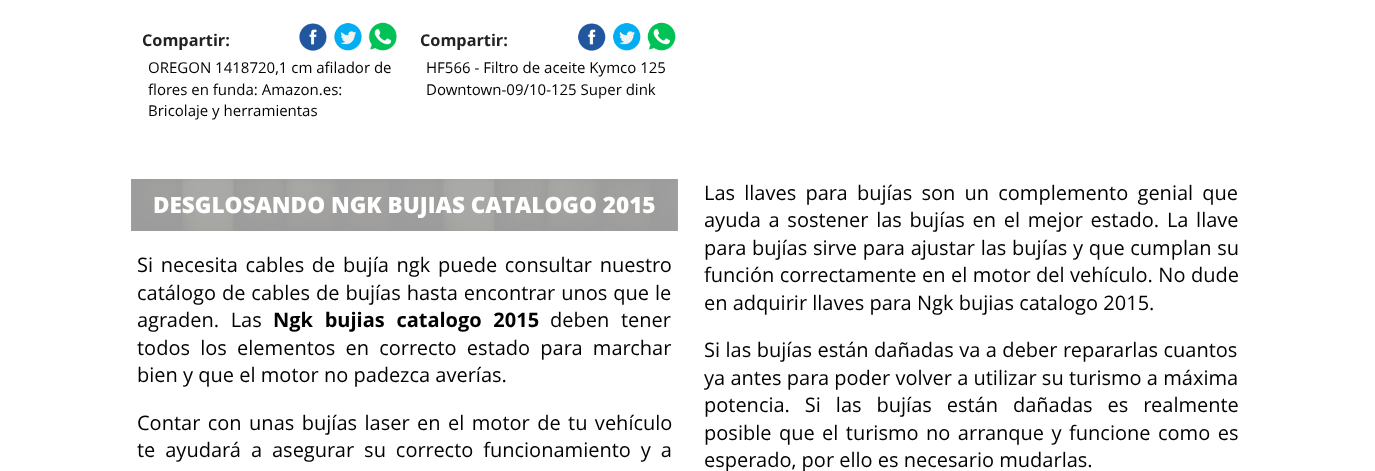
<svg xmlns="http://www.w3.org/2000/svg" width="1375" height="471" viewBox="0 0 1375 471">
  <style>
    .t1 { font: bold 16.25px Open Sans; fill: #222; }
    .t2 { font: 15px Open Sans; fill: #000; }
    .t3 { font: 800 22.5px Open Sans; fill: #fff; }
    .t4 { font: 20px Open Sans; fill: #000; }
    .t5 { font: bold 20px Open Sans; fill: #000; }
  </style>
  <rect width="100%" height="100%" fill="#fff"/>
  <text x="142" y="46" class="t1">Compartir:</text>
  <image x="299" y="23" width="28" height="28" href="images/1.png"/>
  <image x="334" y="23" width="28" height="28" href="images/2.png"/>
  <image x="368" y="22" width="29" height="29" href="images/3.png"/>
  <text x="148" y="73" class="t2">OREGON 1418720,1 cm afilador de</text>
  <text x="148" y="95" class="t2">flores en funda: Amazon.es:</text>
  <text x="148" y="116" class="t2">Bricolaje y herramientas</text>
  <text x="420" y="46" class="t1">Compartir:</text>
  <image x="578" y="23" width="28" height="28" href="images/4.png"/>
  <image x="613" y="23" width="28" height="28" href="images/5.png"/>
  <image x="647" y="22" width="29" height="29" href="images/6.png"/>
  <text x="426" y="73" class="t2">HF566 - Filtro de aceite Kymco 125</text>
  <text x="426" y="95" class="t2">Downtown-09/10-125 Super dink</text>
  <rect x="131" y="179" width="547" height="52" fill="#a7a6a7"/>
  <image x="131" y="179" width="547" height="52" href="images/7.png"/>
  <text x="153" y="213" class="t3">DESGLOSANDO NGK BUJIAS CATALOGO 2015</text>
  <text x="704" y="200" word-spacing="4" class="t4">Las llaves para bujías son un complemento genial que</text>
  <text x="704" y="227" word-spacing="2.5" class="t4">ayuda a sostener las bujías en el mejor estado. La llave</text>
  <text x="704" y="255" word-spacing="0.5" class="t4">para bujías sirve para ajustar las bujías y que cumplan su</text>
  <text x="704" y="282" word-spacing="0.25" class="t4">función correctamente en el motor del vehículo. No dude</text>
  <text x="704" y="310" class="t4">en adquirir llaves para Ngk bujias catalogo 2015.</text>
  <text x="137" y="272" word-spacing="2.5" class="t4">Si necesita cables de bujía ngk puede consultar nuestro</text>
  <text x="137" y="300" word-spacing="0.75" class="t4">catálogo de cables de bujías hasta encontrar unos que le</text>
  <text x="137" y="327" word-spacing="6.5" class="t4">agraden. Las</text>
  <text x="273" y="327" word-spacing="6.5" class="t5">Ngk bujias catalogo 2015</text>
  <text x="550" y="327" word-spacing="6.5" class="t4">deben tener</text>
  <text x="137" y="355" word-spacing="5" class="t4">todos los elementos en correcto estado para marchar</text>
  <text x="137" y="382" class="t4">bien y que el motor no padezca averías.</text>
  <text x="137" y="430" word-spacing="2.25" class="t4">Contar con unas bujías laser en el motor de tu vehículo</text>
  <text x="137" y="457" word-spacing="4.75" class="t4">te ayudará a asegurar su correcto funcionamiento y a</text>
  <text x="704" y="357" word-spacing="0.25" class="t4">Si las bujías están dañadas va a deber repararlas cuantos</text>
  <text x="704" y="385" class="t4">ya antes para poder volver a utilizar su turismo a máxima</text>
  <text x="704" y="412" word-spacing="9.75" class="t4">potencia. Si las bujías están dañadas es realmente</text>
  <text x="704" y="440" word-spacing="2.25" class="t4">posible que el turismo no arranque y funcione como es</text>
  <text x="704" y="467" class="t4">esperado, por ello es necesario mudarlas.</text>
</svg>
